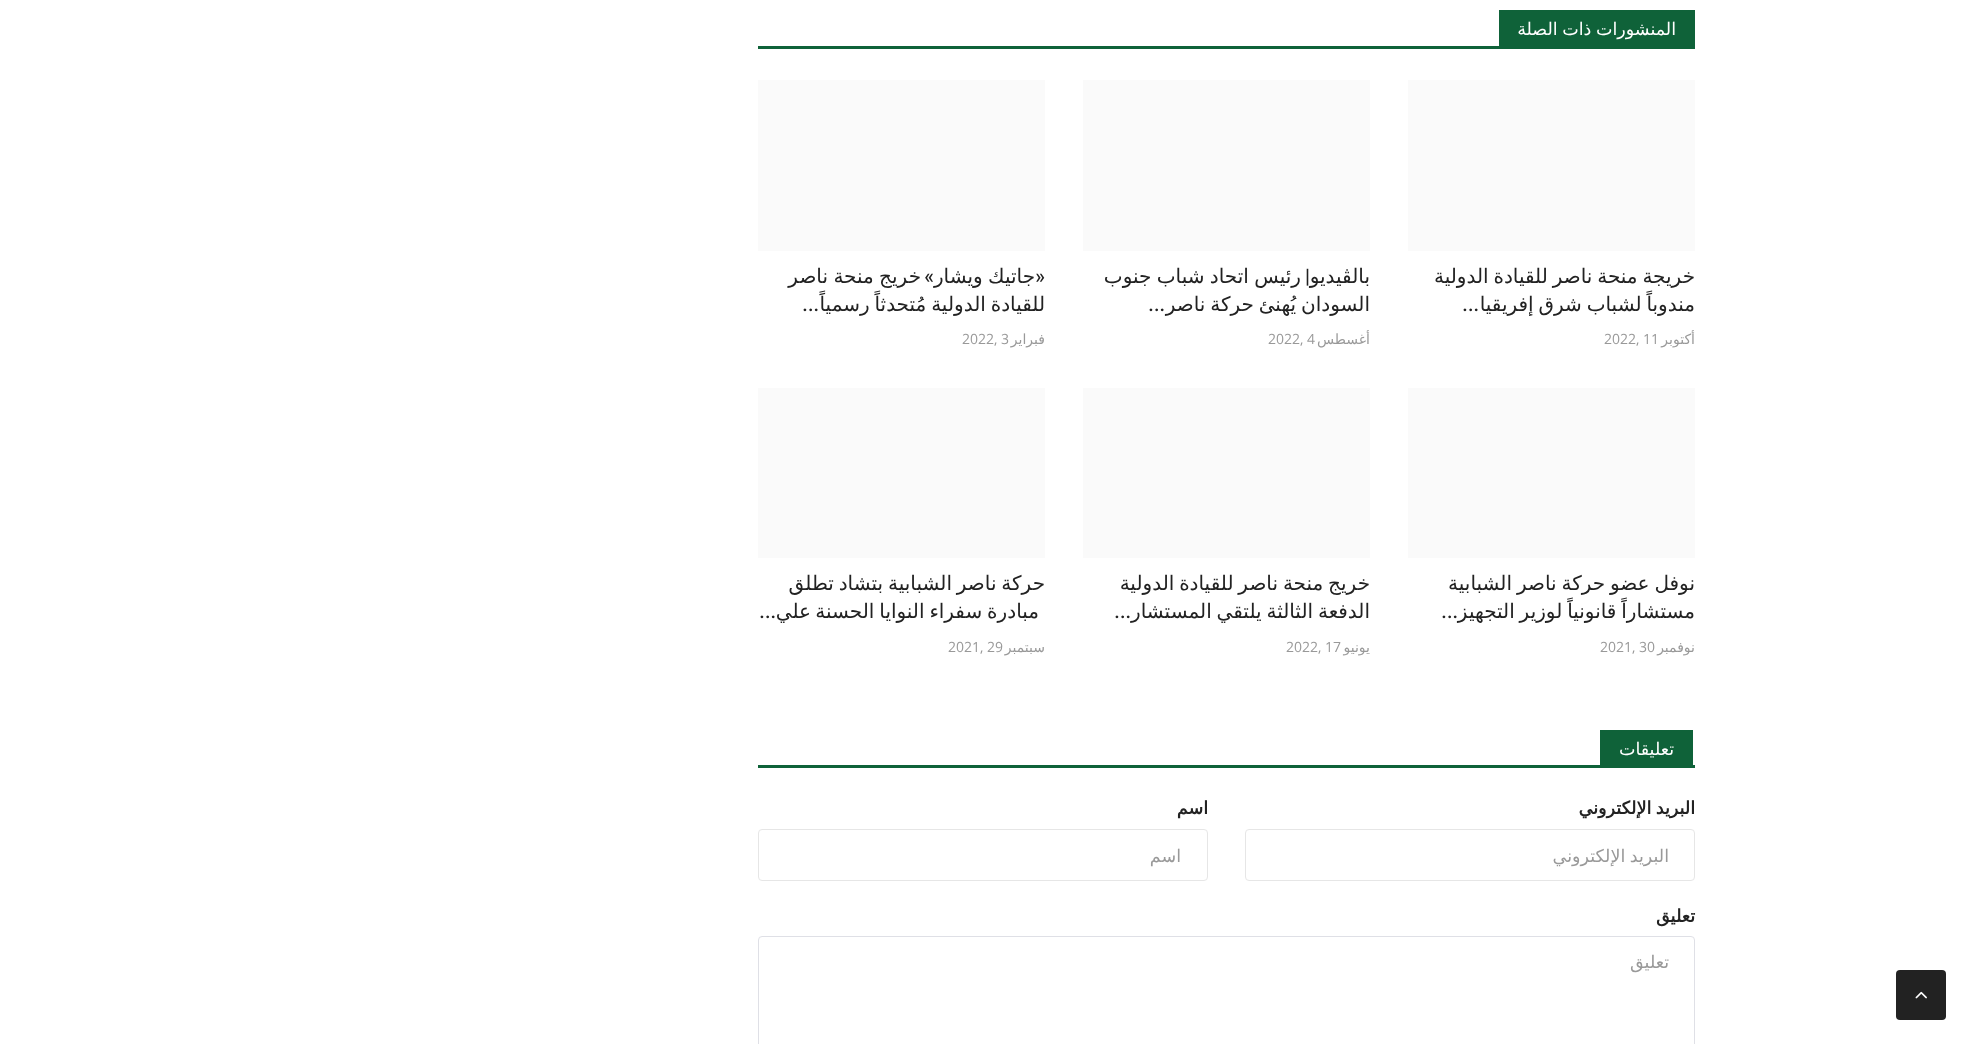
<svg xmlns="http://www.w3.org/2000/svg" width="1964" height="1044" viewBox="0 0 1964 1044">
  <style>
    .t1 { font: 17.5px DejaVu Sans; direction: rtl; fill: #fff; }
    .t2 { font: 20px DejaVu Sans; direction: rtl; fill: #222; }
    .t3 { font: 500 20px Roboto; direction: rtl; fill: #222; }
    .t4 { font: 14px DejaVu Sans; direction: rtl; fill: #999; }
    .t5 { font: 14px Open Sans; fill: #999; }
    .t6 { font: bold 17.5px DejaVu Sans; direction: rtl; fill: #222; }
    .t7 { font: 17.5px DejaVu Sans; direction: rtl; fill: #999; }
  </style>
  <rect width="100%" height="100%" fill="#fff"/>
  <rect x="758" y="46" width="937" height="3" fill="#0f6239"/>
  <rect x="1499" y="10" width="196" height="36" fill="#0f6239"/>
  <text x="1676" y="35" word-spacing="-1" class="t1">المنشورات ذات الصلة</text>
  <rect x="1408" y="80" width="287" height="171" fill="#fafafa"/>
  <text x="1695" y="283" word-spacing="-1.5" class="t2">خريجة منحة ناصر للقيادة الدولية</text>
  <text x="1695" y="311" word-spacing="-1.5" class="t2">مندوباً لشباب شرق إفريقيا</text>
  <text x="1479" y="311" class="t3">...</text>
  <text x="1695" y="344" class="t4">أكتوبر</text>
  <text x="1604" y="344" class="t5">2022, 11</text>
  <rect x="1083" y="80" width="287" height="171" fill="#fafafa"/>
  <text x="1310" y="283" class="t3">|</text>
  <text x="1370" y="283" class="t2">بالڤيديو</text>
  <text x="1301" y="283" word-spacing="-1" class="t2">رئيس اتحاد شباب جنوب</text>
  <text x="1370" y="311" word-spacing="-1.5" class="t2">السودان يُهنئ حركة ناصر</text>
  <text x="1165" y="311" class="t3">...</text>
  <text x="1370" y="344" class="t4">أغسطس</text>
  <text x="1268" y="344" class="t5">2022, 4</text>
  <rect x="758" y="80" width="287" height="171" fill="#fafafa"/>
  <text x="1045" y="283" class="t3">«</text>
  <text x="934" y="283" class="t3">»</text>
  <text x="1035" y="283" word-spacing="-1" class="t2">جاتيك ويشار</text>
  <text x="921" y="283" word-spacing="-1" class="t2">خريج منحة ناصر</text>
  <text x="1045" y="311" word-spacing="-1.5" class="t2">للقيادة الدولية مُتحدثاً رسمياً</text>
  <text x="819" y="311" class="t3">...</text>
  <text x="1045" y="344" class="t4">فبراير</text>
  <text x="962" y="344" class="t5">2022, 3</text>
  <rect x="1408" y="388" width="287" height="170" fill="#fafafa"/>
  <text x="1695" y="590" word-spacing="-1.5" class="t2">نوفل عضو حركة ناصر الشبابية</text>
  <text x="1458" y="618" class="t3">...</text>
  <text x="1695" y="618" word-spacing="-1.5" class="t2">مستشاراً قانونياً لوزير التجهيز</text>
  <text x="1695" y="652" class="t4">نوفمبر</text>
  <text x="1600" y="652" class="t5">2021, 30</text>
  <rect x="1083" y="388" width="287" height="170" fill="#fafafa"/>
  <text x="1370" y="590" word-spacing="-1.5" class="t2">خريج منحة ناصر للقيادة الدولية</text>
  <text x="1131" y="618" class="t3">...</text>
  <text x="1370" y="618" word-spacing="-1.5" class="t2">الدفعة الثالثة يلتقي المستشار</text>
  <text x="1370" y="652" class="t4">يونيو</text>
  <text x="1286" y="652" class="t5">2022, 17</text>
  <rect x="758" y="388" width="287" height="170" fill="#fafafa"/>
  <text x="1045" y="590" word-spacing="-1.5" class="t2">حركة ناصر الشبابية بتشاد تطلق</text>
  <text x="1039" y="618" word-spacing="-1.5" class="t2">مبادرة سفراء النوايا الحسنة</text>
  <text x="811" y="618" class="t2">علي</text>
  <text x="776" y="618" class="t3">...</text>
  <text x="1045" y="652" class="t4">سبتمبر</text>
  <text x="948" y="652" class="t5">2021, 29</text>
  <rect x="758" y="765" width="937" height="3" fill="#0f6239"/>
  <rect x="1600" y="730" width="93" height="35" fill="#0f6239"/>
  <text x="1674" y="755" class="t1">تعليقات</text>
  <text x="1695" y="814" word-spacing="-1" class="t6">البريد الإلكتروني</text>
  <rect x="1245.5" y="829.5" width="449" height="51" rx="3.5" fill="none" stroke="#e6e6e6"/>
  <text x="1669" y="862" word-spacing="-1" class="t7">البريد الإلكتروني</text>
  <text x="1208" y="814" class="t6">اسم</text>
  <rect x="758.5" y="829.5" width="449" height="51" rx="3.5" fill="none" stroke="#e6e6e6"/>
  <text x="1181" y="862" class="t7">اسم</text>
  <text x="1695" y="922" class="t6">تعليق</text>
  <rect x="758.5" y="936.5" width="936" height="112" rx="3.5" fill="none" stroke="#dfe0e6"/>
  <text x="1669" y="968" class="t7">تعليق</text>
  <rect x="1896" y="970" width="50" height="50" rx="4" fill="#222"/>
  <image x="1915" y="991" width="12" height="8" href="images/1.png"/>
</svg>
